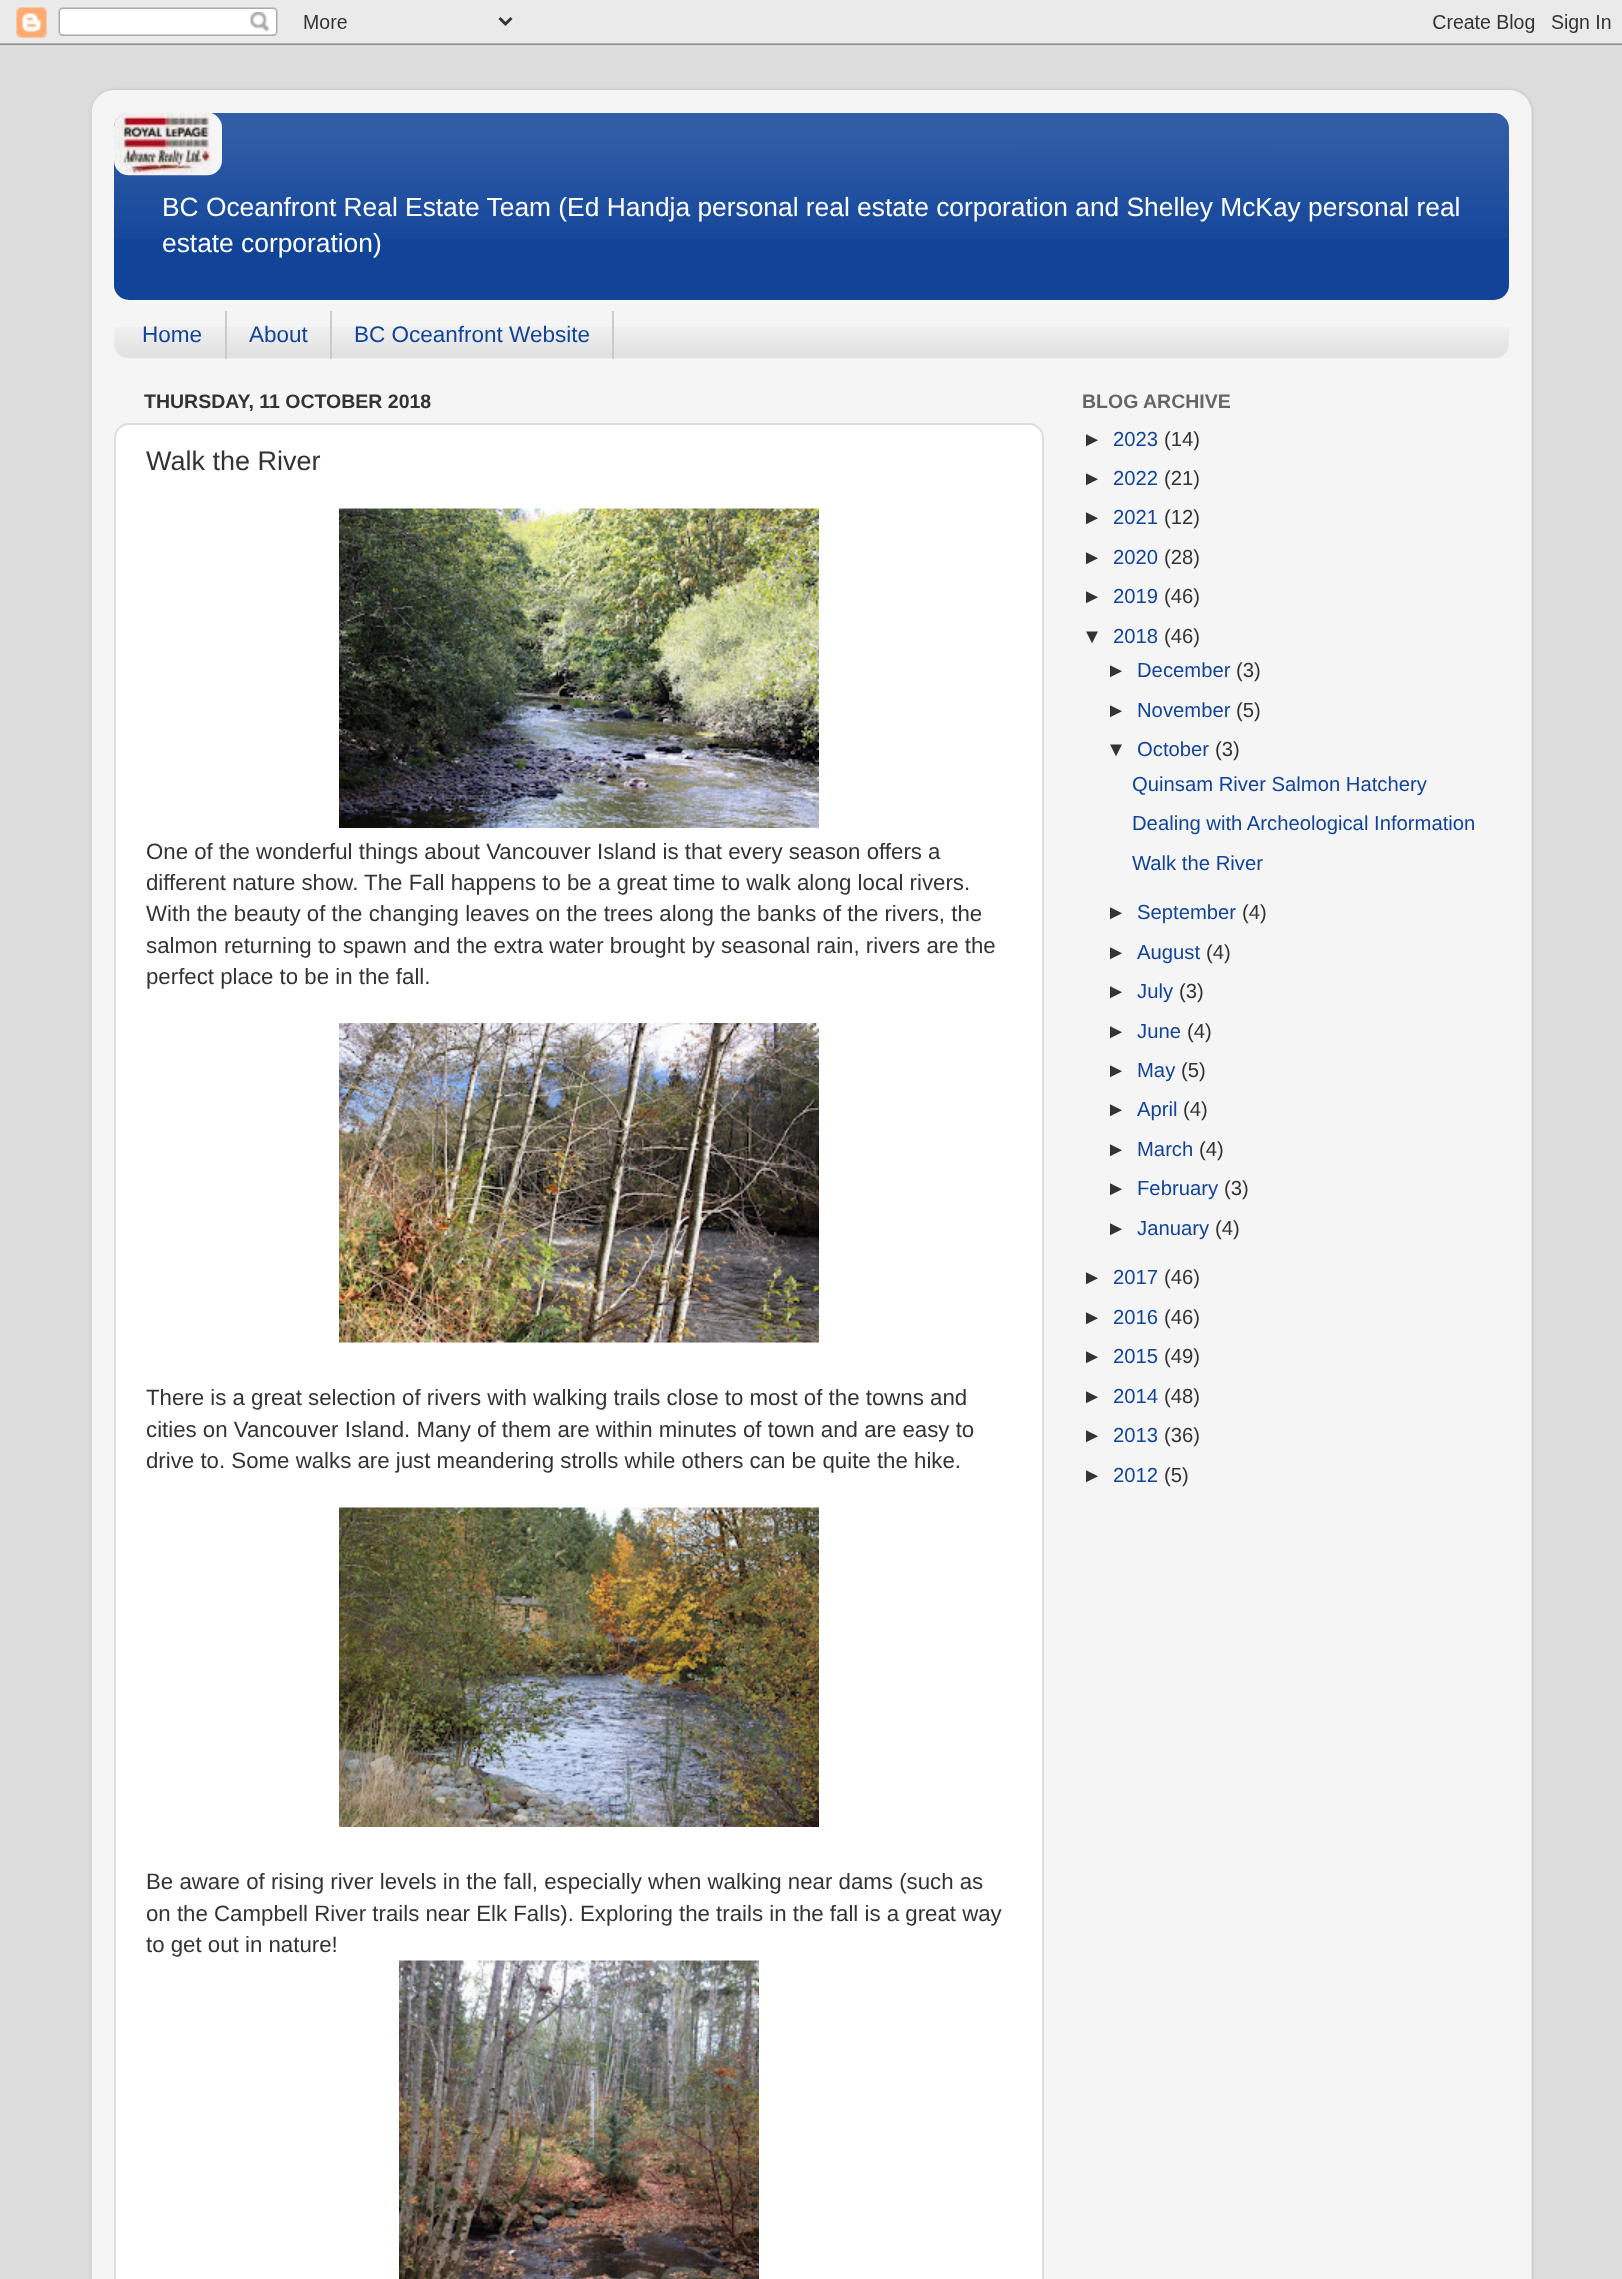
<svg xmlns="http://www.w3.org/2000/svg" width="1622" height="2279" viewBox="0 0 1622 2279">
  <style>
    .t1 { font: 26.35px Liberation Sans; fill: #fff; }
    .t2 { font: 22.5px Liberation Sans; fill: #149; }
    .t3 { font: bold 19.5px Liberation Sans; fill: #333; }
    .t4 { font: 27px Liberation Sans; fill: #333; }
    .t5 { font: 22.25px Liberation Sans; fill: #333; }
    .t6 { font: bold 19.5px Liberation Sans; fill: #666; }
    .t7 { font: 20.25px Liberation Sans; fill: #333; }
    .t8 { font: 20.25px Liberation Sans; fill: #149; }
  </style>
  <defs>
    <clipPath id="clip1"><path d="M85 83H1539V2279H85ZM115 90H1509C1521.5 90 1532 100.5 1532 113V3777C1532 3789.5 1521.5 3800 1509 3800H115C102.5 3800 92 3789.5 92 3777V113C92 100.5 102.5 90 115 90Z" clip-rule="evenodd"/></clipPath>
  </defs>
  <rect width="100%" height="100%" fill="#ddd"/>
  <image x="0" y="0" width="1622" height="45" href="images/1.png"/>
  <g clip-path="url(#clip1)">
    <rect x="92" y="90" width="1440" height="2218" rx="23" fill="#00000026" filter="blur(2px)"/>
  </g>
  <image x="91" y="90" width="1441" height="2189" href="images/2.png"/>
  <rect x="114" y="113" width="1395" height="187" rx="15" fill="#149"/>
  <image x="114" y="113" width="1395" height="125" href="images/3.png"/>
  <image x="114" y="113" width="108" height="63" href="images/4.png"/>
  <text x="162" y="216" class="t1">BC Oceanfront Real Estate Team (Ed Handja personal real estate corporation and Shelley McKay personal real</text>
  <text x="162" y="252" class="t1">estate corporation)</text>
  <image x="114" y="327" width="1395" height="32" href="images/5.png"/>
  <rect x="225" y="311" width="2" height="48" fill="#ccc"/>
  <text x="142" y="342" class="t2">Home</text>
  <rect x="330" y="311" width="2" height="48" fill="#ccc"/>
  <text x="249" y="342" class="t2">About</text>
  <rect x="612" y="311" width="2" height="48" fill="#ccc"/>
  <text x="354" y="342" class="t2">BC Oceanfront Website</text>
  <text x="144" y="408" class="t3">THURSDAY, 11 OCTOBER 2018</text>
  <rect x="115" y="424" width="928" height="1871" rx="14" fill="#fff" stroke="#ddd" stroke-width="2"/>
  <text x="146" y="470" class="t4">Walk the River</text>
  <image x="339" y="508" width="480" height="320" href="images/6.png"/>
  <text x="146" y="859" class="t5">One of the wonderful things about Vancouver Island is that every season offers a</text>
  <text x="146" y="890" class="t5">different nature show. The Fall happens to be a great time to walk along local rivers.</text>
  <text x="146" y="921" class="t5">With the beauty of the changing leaves on the trees along the banks of the rivers, the</text>
  <text x="146" y="953" class="t5">salmon returning to spawn and the extra water brought by seasonal rain, rivers are the</text>
  <text x="146" y="984" class="t5">perfect place to be in the fall.</text>
  <image x="339" y="1023" width="480" height="320" href="images/7.png"/>
  <text x="146" y="1405" class="t5">There is a great selection of rivers with walking trails close to most of the towns and</text>
  <text x="146" y="1437" class="t5">cities on Vancouver Island. Many of them are within minutes of town and are easy to</text>
  <text x="146" y="1468" class="t5">drive to. Some walks are just meandering strolls while others can be quite the hike.</text>
  <image x="339" y="1507" width="480" height="320" href="images/8.png"/>
  <text x="146" y="1889" class="t5">Be aware of rising river levels in the fall, especially when walking near dams (such as</text>
  <text x="146" y="1921" class="t5">on the Campbell River trails near Elk Falls). Exploring the trails in the fall is a great way</text>
  <text x="146" y="1952" class="t5">to get out in nature!</text>
  <image x="399" y="1960" width="360" height="319" href="images/9.png"/>
  <text x="1082" y="408" class="t6">BLOG ARCHIVE</text>
  <text x="1082" y="446" class="t7">►</text>
  <text x="1113" y="446" class="t8">2023</text>
  <text x="1164" y="446" class="t7">(14)</text>
  <text x="1082" y="485" class="t7">►</text>
  <text x="1113" y="485" class="t8">2022</text>
  <text x="1164" y="485" class="t7">(21)</text>
  <text x="1082" y="524" class="t7">►</text>
  <text x="1113" y="524" class="t8">2021</text>
  <text x="1164" y="524" class="t7">(12)</text>
  <text x="1082" y="564" class="t7">►</text>
  <text x="1113" y="564" class="t8">2020</text>
  <text x="1164" y="564" class="t7">(28)</text>
  <text x="1082" y="603" class="t7">►</text>
  <text x="1113" y="603" class="t8">2019</text>
  <text x="1164" y="603" class="t7">(46)</text>
  <text x="1082" y="643" class="t7">▼</text>
  <text x="1113" y="643" class="t8">2018</text>
  <text x="1164" y="643" class="t7">(46)</text>
  <text x="1106" y="677" class="t7">►</text>
  <text x="1137" y="677" class="t8">December</text>
  <text x="1236" y="677" class="t7">(3)</text>
  <text x="1106" y="717" class="t7">►</text>
  <text x="1137" y="717" class="t8">November</text>
  <text x="1236" y="717" class="t7">(5)</text>
  <text x="1106" y="756" class="t7">▼</text>
  <text x="1137" y="756" class="t8">October</text>
  <text x="1215" y="756" class="t7">(3)</text>
  <text x="1132" y="791" class="t8">Quinsam River Salmon Hatchery</text>
  <text x="1132" y="830" class="t8">Dealing with Archeological Information</text>
  <text x="1132" y="870" class="t8">Walk the River</text>
  <text x="1106" y="919" class="t7">►</text>
  <text x="1137" y="919" class="t8">September</text>
  <text x="1242" y="919" class="t7">(4)</text>
  <text x="1106" y="959" class="t7">►</text>
  <text x="1137" y="959" class="t8">August</text>
  <text x="1206" y="959" class="t7">(4)</text>
  <text x="1106" y="998" class="t7">►</text>
  <text x="1137" y="998" class="t8">July</text>
  <text x="1179" y="998" class="t7">(3)</text>
  <text x="1106" y="1038" class="t7">►</text>
  <text x="1137" y="1038" class="t8">June</text>
  <text x="1187" y="1038" class="t7">(4)</text>
  <text x="1106" y="1077" class="t7">►</text>
  <text x="1137" y="1077" class="t8">May</text>
  <text x="1181" y="1077" class="t7">(5)</text>
  <text x="1106" y="1116" class="t7">►</text>
  <text x="1137" y="1116" class="t8">April</text>
  <text x="1183" y="1116" class="t7">(4)</text>
  <text x="1106" y="1156" class="t7">►</text>
  <text x="1137" y="1156" class="t8">March</text>
  <text x="1199" y="1156" class="t7">(4)</text>
  <text x="1106" y="1195" class="t7">►</text>
  <text x="1137" y="1195" class="t8">February</text>
  <text x="1224" y="1195" class="t7">(3)</text>
  <text x="1106" y="1235" class="t7">►</text>
  <text x="1137" y="1235" class="t8">January</text>
  <text x="1215" y="1235" class="t7">(4)</text>
  <text x="1082" y="1284" class="t7">►</text>
  <text x="1113" y="1284" class="t8">2017</text>
  <text x="1164" y="1284" class="t7">(46)</text>
  <text x="1082" y="1324" class="t7">►</text>
  <text x="1113" y="1324" class="t8">2016</text>
  <text x="1164" y="1324" class="t7">(46)</text>
  <text x="1082" y="1363" class="t7">►</text>
  <text x="1113" y="1363" class="t8">2015</text>
  <text x="1164" y="1363" class="t7">(49)</text>
  <text x="1082" y="1403" class="t7">►</text>
  <text x="1113" y="1403" class="t8">2014</text>
  <text x="1164" y="1403" class="t7">(48)</text>
  <text x="1082" y="1442" class="t7">►</text>
  <text x="1113" y="1442" class="t8">2013</text>
  <text x="1164" y="1442" class="t7">(36)</text>
  <text x="1082" y="1482" class="t7">►</text>
  <text x="1113" y="1482" class="t8">2012</text>
  <text x="1164" y="1482" class="t7">(5)</text>
</svg>
